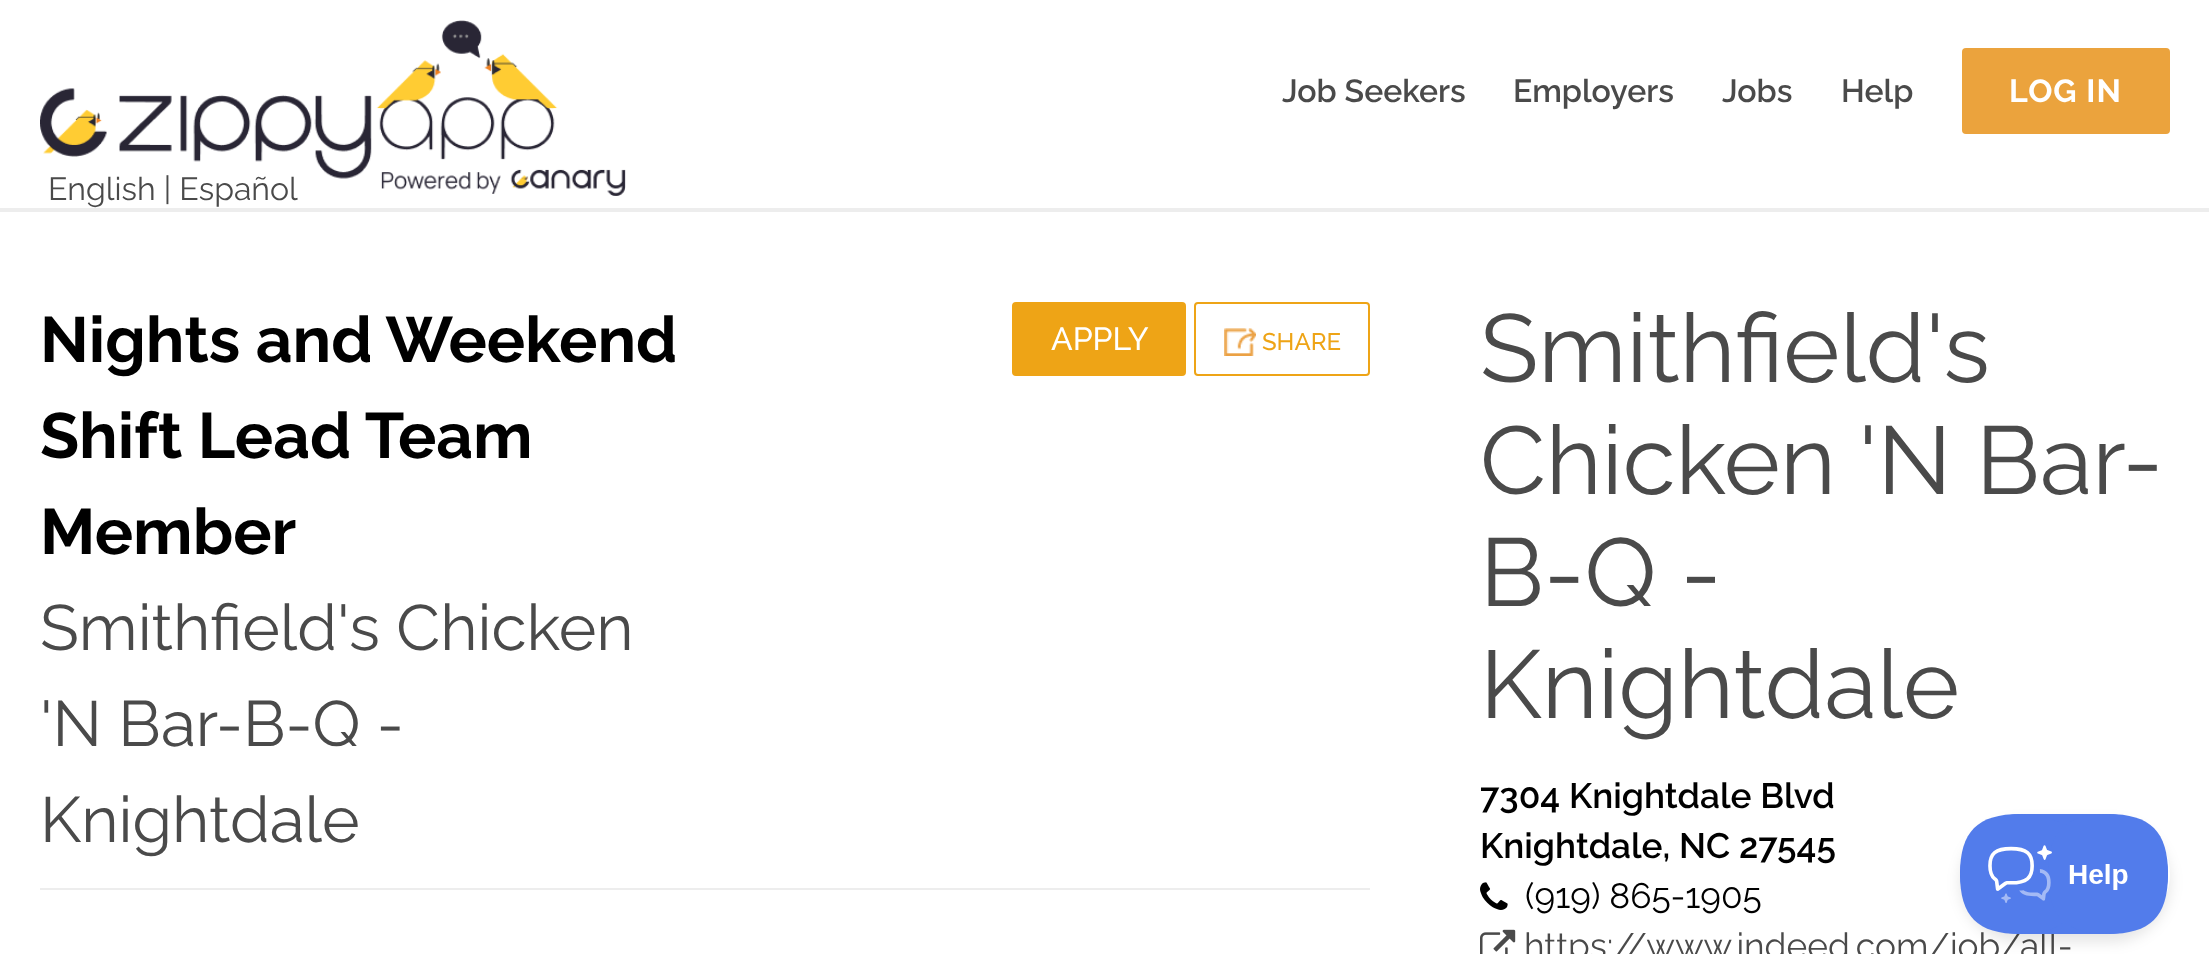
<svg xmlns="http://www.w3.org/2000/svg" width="2209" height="954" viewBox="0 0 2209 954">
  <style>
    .t1 { font: 600 32px Raleway; fill: #4a4a4a; }
    .t2 { font: bold 32px Raleway; letter-spacing: 1px; fill: #fff; }
    .t3 { font: 32px Raleway; fill: #4a4a4a; }
    .t4 { font: bold 64px Raleway; fill: #000; }
    .t5 { font: 64px Raleway; fill: #4a4a4a; }
    .t6 { font: 500 32px Raleway; fill: #fff; }
    .t7 { font: 500 24px Raleway; fill: #eea416; }
    .t8 { font: 96px Raleway; fill: #4a4a4a; }
    .t9 { font: 600 35.25px Raleway; fill: #000; }
    .t10 { font: 35.25px Raleway; fill: #000; }
    .t11 { font: 35.25px Raleway; fill: #4a4a4a; }
  </style>
  <defs>
    <clipPath id="clip1"><path d="M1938 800H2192V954H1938ZM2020 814H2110C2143 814 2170 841 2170 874C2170 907 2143 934 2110 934H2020C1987 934 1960 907 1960 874C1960 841 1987 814 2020 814Z" clip-rule="evenodd"/></clipPath>
  </defs>
  <rect width="100%" height="100%" fill="#fff"/>
  <rect x="0" y="208" width="2209" height="4" fill="#ededed"/>
  <image x="40" y="20" width="586" height="176" href="images/1.png"/>
  <text x="1282" y="102" class="t1">Job Seekers</text>
  <text x="1513" y="102" class="t1">Employers</text>
  <text x="1722" y="102" class="t1">Jobs</text>
  <text x="1841" y="102" class="t1">Help</text>
  <rect x="1962" y="48" width="208" height="86" rx="4" fill="#eba33d"/>
  <text x="2009" y="102" class="t2">LOG IN</text>
  <text x="48" y="200" class="t3">English | Español</text>
  <rect x="40" y="888" width="1330" height="2" fill="#ededed"/>
  <text x="40" y="362" class="t4">Nights and Weekend</text>
  <text x="40" y="458" class="t4">Shift Lead Team</text>
  <text x="40" y="554" class="t4">Member</text>
  <text x="40" y="650" class="t5">Smithfield's Chicken</text>
  <text x="40" y="746" class="t5">'N Bar-B-Q -</text>
  <text x="40" y="842" class="t5">Knightdale</text>
  <rect x="1013" y="303" width="172" height="72" rx="3" fill="#eea416" stroke="#eea416" stroke-width="2"/>
  <text x="1051" y="350" class="t6">APPLY</text>
  <rect x="1195" y="303" width="174" height="72" rx="3" fill="none" stroke="#eea416" stroke-width="2"/>
  <image x="1224" y="328" width="32" height="28" href="images/2.png"/>
  <text x="1262" y="350" class="t7">SHARE</text>
  <text x="1480" y="382" class="t8">Smithfield's</text>
  <text x="1480" y="494" class="t8">Chicken 'N Bar-</text>
  <text x="1480" y="606" class="t8">B-Q -</text>
  <text x="1480" y="718" class="t8">Knightdale</text>
  <text x="1480" y="808" class="t9">7304 Knightdale Blvd</text>
  <text x="1480" y="858" class="t9">Knightdale, NC 27545</text>
  <image x="1480" y="882" width="28" height="28" href="images/3.png"/>
  <text x="1525" y="908" class="t10">(919) 865-1905</text>
  <image x="1480" y="929" width="36" height="25" href="images/4.png"/>
  <text x="1524" y="958" class="t11">https://www.indeed.com/job/all-</text>
  <g clip-path="url(#clip1)">
    <rect x="1960" y="822" width="210" height="120" rx="60" fill="#0000001a" filter="blur(7px)"/>
  </g>
  <image x="1960" y="814" width="208" height="120" href="images/5.png"/>
</svg>
